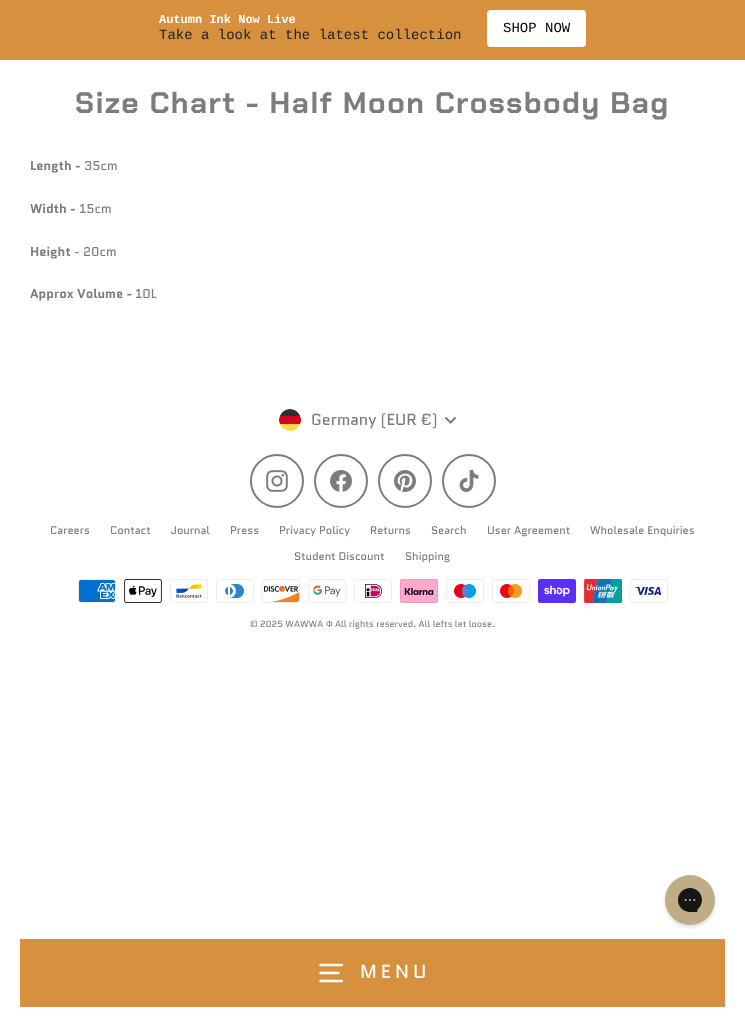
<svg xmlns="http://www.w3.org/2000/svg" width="745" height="1027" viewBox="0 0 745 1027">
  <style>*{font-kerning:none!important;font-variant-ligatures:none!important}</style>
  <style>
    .t1 { font: bold 12px Liberation Mono; fill: #fff; }
    .t2 { font: 14px Liberation Mono; fill: #202223; }
    .t3 { font: 14px Liberation Mono; fill: #000; }
    .t4 { font: bold 29.75px Chakra Petch; letter-spacing: 1.5px; fill: #7c7c7c; }
    .t5 { font: bold 12.75px Quantico; fill: #7c7c7c; }
    .t6 { font: 12.75px Quantico; fill: #7c7c7c; }
    .t7 { font: 16px Quantico; fill: #7c7c7c; }
    .t8 { font: 11px Quantico; fill: #7c7c7c; }
    .t9 { font: 9px Quantico; fill: #7c7c7c; }
    .t10 { font: 9px Liberation Sans; fill: #7c7c7c; }
    .t11 { font: 19px Quantico; letter-spacing: 4px; fill: #fff; }
  </style>
  <rect width="100%" height="100%" fill="#fff"/>
  <rect x="0" y="0" width="745" height="60" fill="#d7903d"/>
  <text x="159" y="23" class="t1">Autumn Ink Now Live</text>
  <text x="159" y="39" class="t2">Take a look at the latest collection</text>
  <rect x="487" y="10" width="99" height="37" rx="4" fill="#fff"/>
  <text x="503" y="32" class="t3">SHOP NOW</text>
  <text x="75" y="113" class="t4">Size Chart - Half Moon Crossbody Bag</text>
  <text x="30" y="170" class="t5">Length -</text>
  <text x="84" y="170" class="t6">35cm</text>
  <text x="30" y="213" class="t5">Width -</text>
  <text x="79" y="213" class="t6">15cm</text>
  <text x="30" y="256" class="t5">Height</text>
  <text x="74" y="256" class="t6">- 20cm</text>
  <text x="30" y="298" class="t5">Approx Volume -</text>
  <text x="135" y="298" class="t6">10L</text>
  <image x="279" y="409" width="22" height="22" href="images/1.png"/>
  <text x="311" y="425" class="t7">Germany (EUR €)</text>
  <path d="M445.5 417.5L450.5 422.5L455.5 417.5" fill="none" stroke="#7c7c7c" stroke-width="2"/>
  <circle cx="277" cy="481" r="26" fill="none" stroke="#7c7c7c" stroke-width="2"/>
  <image x="266" y="470" width="22" height="22" href="images/2.png"/>
  <circle cx="341" cy="481" r="26" fill="none" stroke="#7c7c7c" stroke-width="2"/>
  <image x="330" y="470" width="22" height="22" href="images/3.png"/>
  <circle cx="405" cy="481" r="26" fill="none" stroke="#7c7c7c" stroke-width="2"/>
  <image x="394" y="470" width="22" height="22" href="images/4.png"/>
  <circle cx="469" cy="481" r="26" fill="none" stroke="#7c7c7c" stroke-width="2"/>
  <image x="459" y="470" width="20" height="22" href="images/5.png"/>
  <text x="50" y="534" class="t8">Careers</text>
  <text x="110" y="534" class="t8">Contact</text>
  <text x="171" y="534" class="t8">Journal</text>
  <text x="230" y="534" class="t8">Press</text>
  <text x="279" y="534" class="t8">Privacy Policy</text>
  <text x="370" y="534" class="t8">Returns</text>
  <text x="431" y="534" class="t8">Search</text>
  <text x="487" y="534" class="t8">User Agreement</text>
  <text x="590" y="534" class="t8">Wholesale Enquiries</text>
  <text x="294" y="560" class="t8">Student Discount</text>
  <text x="405" y="560" class="t8">Shipping</text>
  <image x="78" y="579" width="38" height="24" href="images/6.png"/>
  <image x="124" y="579" width="38" height="24" href="images/7.png"/>
  <image x="170" y="579" width="38" height="24" href="images/8.png"/>
  <image x="216" y="579" width="38" height="24" href="images/9.png"/>
  <image x="262" y="579" width="38" height="24" href="images/10.png"/>
  <image x="308" y="579" width="38" height="24" href="images/11.png"/>
  <image x="354" y="579" width="38" height="24" href="images/12.png"/>
  <image x="400" y="579" width="38" height="24" href="images/13.png"/>
  <image x="446" y="579" width="38" height="24" href="images/14.png"/>
  <image x="492" y="579" width="38" height="24" href="images/15.png"/>
  <image x="538" y="579" width="38" height="24" href="images/16.png"/>
  <image x="584" y="579" width="38" height="24" href="images/17.png"/>
  <image x="630" y="579" width="38" height="24" href="images/18.png"/>
  <text x="250" y="627" class="t9">© 2025 WAWWA</text>
  <text x="326" y="627" class="t10">Ф</text>
  <text x="335" y="627" class="t9">All rights reserved. All lefts let loose.</text>
  <rect x="20" y="939" width="705" height="68" fill="#d7903d"/>
  <path d="M319.5 965H343M319.5 973H339.5M319.5 981H343" fill="none" stroke="#fff" stroke-width="2.3"/>
  <text x="360" y="978" class="t11">MENU</text>
  <image x="663" y="875" width="54" height="54" href="images/19.png"/>
</svg>
